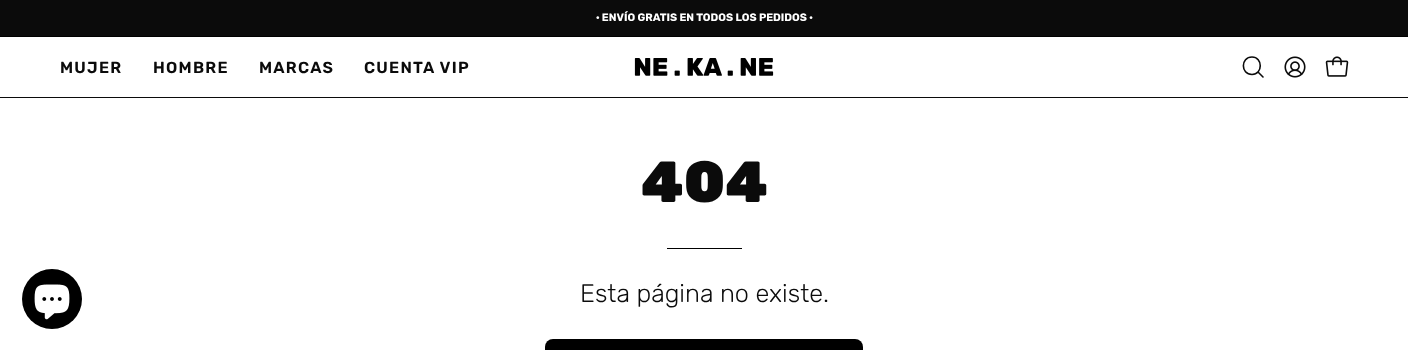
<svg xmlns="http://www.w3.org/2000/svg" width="1408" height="350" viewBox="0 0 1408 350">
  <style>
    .t1 { font: bold 10.8px Rubik; fill: #fff; }
    .t2 { font: 600 16px Rubik; letter-spacing: 1.25px; fill: #0b0b0b; }
    .t3 { font: 900 58px Rubik; fill: #0b0b0b; }
    .t4 { font: 300 25.25px Rubik; fill: #0b0b0b; }
  </style>
  <rect width="100%" height="100%" fill="#fff"/>
  <rect x="0" y="0" width="1408" height="36" fill="#0b0b0b"/>
  <rect x="0" y="36" width="1408" height="1" fill="#000"/>
  <text x="596" y="21" class="t1">· ENVÍO GRATIS EN TODOS LOS PEDIDOS ·</text>
  <text x="60" y="73" class="t2">MUJER</text>
  <text x="153" y="73" class="t2">HOMBRE</text>
  <text x="259" y="73" class="t2">MARCAS</text>
  <text x="364" y="73" class="t2">CUENTA VIP</text>
  <path d="M1252 74.5C1263 74.5 1263 57 1252 57C1240.5 57 1240.5 74.5 1252 74.5ZM1258 72L1263 77" fill="none" stroke="#0b0b0b" stroke-width="1.6" stroke-linecap="round" stroke-linejoin="round"/>
  <image x="1284" y="56" width="22" height="22" href="images/1.png"/>
  <image x="1325" y="56" width="24" height="21" href="images/2.png"/>
  <image x="634" y="58" width="140" height="18" href="images/3.png"/>
  <rect x="0" y="97" width="1408" height="1" fill="#0b0b0b"/>
  <circle cx="52" cy="299" r="30" fill="#000"/>
  <image x="34" y="284" width="36" height="36" href="images/4.png"/>
  <text x="641" y="202" class="t3">404</text>
  <rect x="667" y="248" width="75" height="1" fill="#000"/>
  <text x="580" y="302" class="t4">Esta página no existe.</text>
  <rect x="545" y="339" width="318" height="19" rx="8" fill="#000"/>
</svg>
